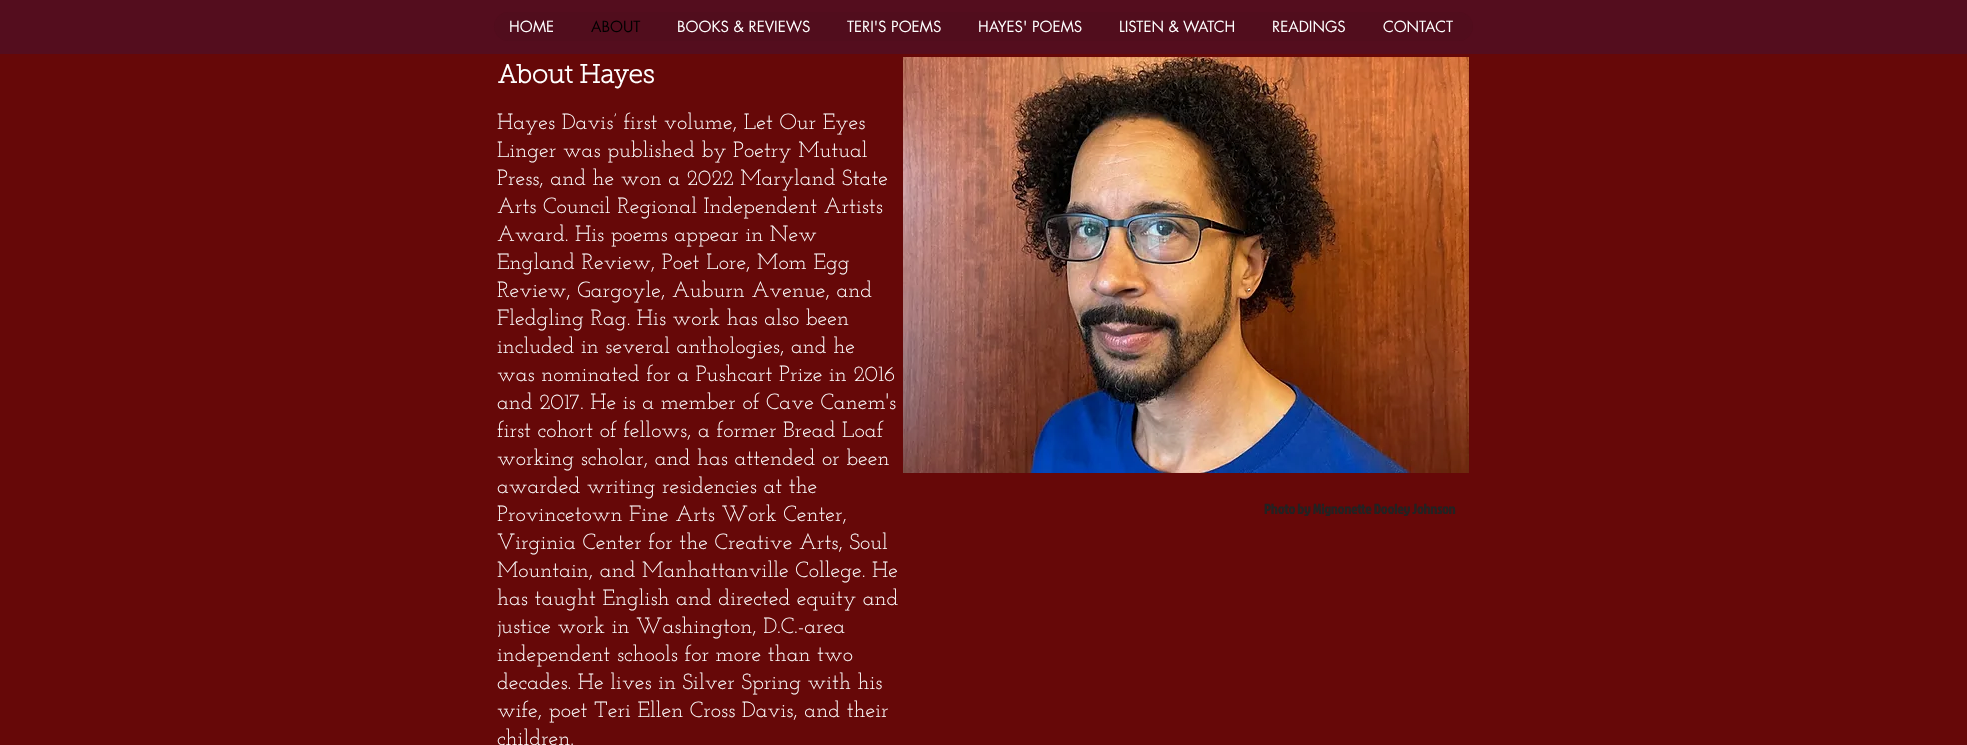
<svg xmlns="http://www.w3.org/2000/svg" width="1967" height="745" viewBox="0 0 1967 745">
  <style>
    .t1 { font: 15px futura; fill: #fff; }
    .t2 { font: 15px futura; fill: #000; }
    .t3 { font: bold 26px 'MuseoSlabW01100'; fill: #fff; }
    .t4 { font: 22px Josefin Slab; fill: #fff; }
    .t5 { font: bold 14px Jockey One; fill: #222; }
  </style>
  <rect width="100%" height="100%" fill="#660808"/>
  <rect x="0" y="0" width="1967" height="54" fill="#540d1e"/>
  <rect x="494" y="12" width="979" height="29" rx="14.5" fill="#510d1d"/>
  <text x="509" y="32" class="t1">HOME</text>
  <text x="591" y="32" class="t2">ABOUT</text>
  <text x="677" y="32" class="t1">BOOKS &amp; REVIEWS</text>
  <text x="847" y="32" class="t1">TERI'S POEMS</text>
  <text x="978" y="32" class="t1">HAYES' POEMS</text>
  <text x="1119" y="32" class="t1">LISTEN &amp; WATCH</text>
  <text x="1272" y="32" class="t1">READINGS</text>
  <text x="1383" y="32" class="t1">CONTACT</text>
  <text x="498" y="83" class="t3">About Hayes</text>
  <image x="903" y="57" width="566" height="416" href="images/1.png"/>
  <text x="497" y="129" class="t4">Hayes Davis’ first volume, Let Our Eyes</text>
  <text x="497" y="157" class="t4">Linger was published by Poetry Mutual</text>
  <text x="497" y="185" class="t4">Press, and he won a 2022 Maryland State</text>
  <text x="497" y="213" class="t4">Arts Council Regional Independent Artists</text>
  <text x="497" y="241" class="t4">Award. His poems appear in New</text>
  <text x="497" y="269" class="t4">England Review, Poet Lore, Mom Egg</text>
  <text x="497" y="297" class="t4">Review, Gargoyle, Auburn Avenue, and</text>
  <text x="497" y="325" class="t4">Fledgling Rag. His work has also been</text>
  <text x="497" y="353" class="t4">included in several anthologies, and he</text>
  <text x="497" y="381" class="t4">was nominated for a Pushcart Prize in 2016</text>
  <text x="497" y="409" class="t4">and 2017. He is a member of Cave Canem's</text>
  <text x="497" y="437" class="t4">first cohort of fellows, a former Bread Loaf</text>
  <text x="497" y="465" class="t4">working scholar, and has attended or been</text>
  <text x="497" y="493" class="t4">awarded writing residencies at the</text>
  <text x="497" y="521" class="t4">Provincetown Fine Arts Work Center,</text>
  <text x="497" y="549" class="t4">Virginia Center for the Creative Arts, Soul</text>
  <text x="497" y="577" class="t4">Mountain, and Manhattanville College. He</text>
  <text x="497" y="605" class="t4">has taught English and directed equity and</text>
  <text x="497" y="633" class="t4">justice work in Washington, D.C.-area</text>
  <text x="497" y="661" class="t4">independent schools for more than two</text>
  <text x="497" y="689" class="t4">decades. He lives in Silver Spring with his</text>
  <text x="497" y="717" class="t4">wife, poet Teri Ellen Cross Davis, and their</text>
  <text x="497" y="745" class="t4">children.</text>
  <text x="1264" y="514" class="t5">Photo by Mignonette Dooley Johnson</text>
</svg>
